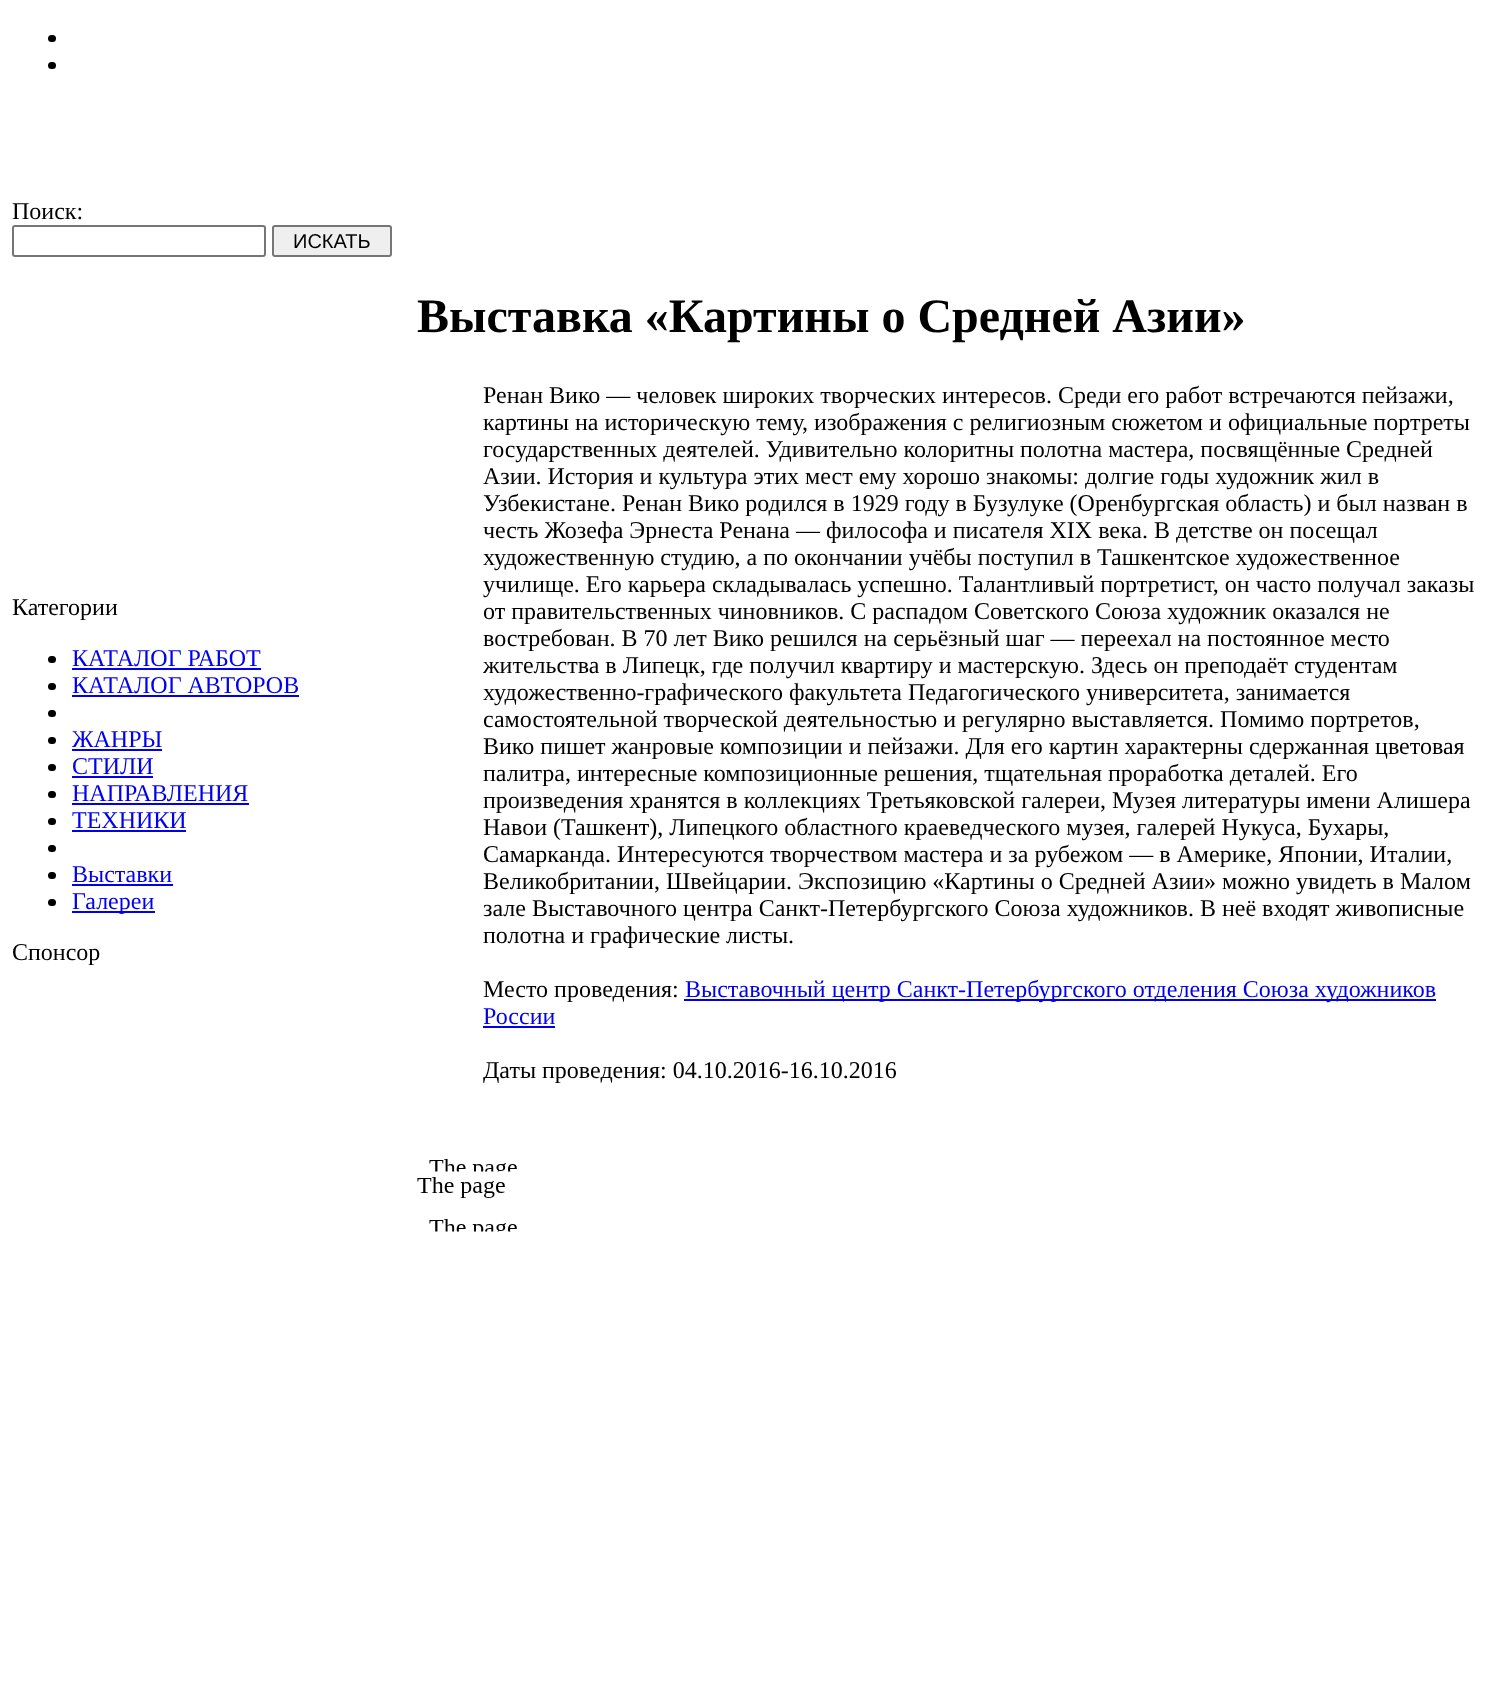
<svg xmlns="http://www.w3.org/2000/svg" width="1493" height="1693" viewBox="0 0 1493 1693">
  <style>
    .t1 { font: 24px Liberation Serif; fill: #000; }
    .t2 { font: 20px Liberation Sans; fill: #000; }
    .t3 { font: 24px Liberation Serif; fill: #00e; }
    .t4 { font: bold 48px Liberation Serif; fill: #000; }
  </style>
  <rect width="100%" height="100%" fill="#fff"/>
  <rect x="48" y="35" width="8" height="7" rx="3.5" fill="#000"/>
  <rect x="48" y="62" width="8" height="7" rx="3.5" fill="#000"/>
  <text x="12" y="219" class="t1">Поиск:</text>
  <rect x="13" y="226" width="252" height="30" rx="2" fill="none" stroke="#767676" stroke-width="2"/>
  <rect x="273" y="226" width="118" height="30" rx="2" fill="#efefef" stroke="#767676" stroke-width="2"/>
  <text x="293" y="248" class="t2">ИСКАТЬ</text>
  <text x="12" y="615" class="t1">Категории</text>
  <rect x="48" y="656" width="8" height="7" rx="3.5" fill="#000"/>
  <text x="72" y="666" class="t3">КАТАЛОГ РАБОТ</text>
  <rect x="72" y="668" width="189" height="2" fill="#00e"/>
  <rect x="48" y="683" width="8" height="7" rx="3.5" fill="#000"/>
  <text x="72" y="693" class="t3">КАТАЛОГ АВТОРОВ</text>
  <rect x="72" y="695" width="227" height="2" fill="#00e"/>
  <rect x="48" y="710" width="8" height="7" rx="3.5" fill="#000"/>
  <rect x="48" y="737" width="8" height="7" rx="3.5" fill="#000"/>
  <text x="72" y="747" class="t3">ЖАНРЫ</text>
  <rect x="72" y="749" width="90" height="2" fill="#00e"/>
  <rect x="48" y="764" width="8" height="7" rx="3.5" fill="#000"/>
  <text x="72" y="774" class="t3">СТИЛИ</text>
  <rect x="72" y="776" width="81" height="2" fill="#00e"/>
  <rect x="48" y="791" width="8" height="7" rx="3.5" fill="#000"/>
  <text x="72" y="801" class="t3">НАПРАВЛЕНИЯ</text>
  <rect x="72" y="803" width="177" height="2" fill="#00e"/>
  <rect x="48" y="818" width="8" height="7" rx="3.5" fill="#000"/>
  <text x="72" y="828" class="t3">ТЕХНИКИ</text>
  <rect x="72" y="830" width="114" height="2" fill="#00e"/>
  <rect x="48" y="845" width="8" height="7" rx="3.5" fill="#000"/>
  <rect x="48" y="872" width="8" height="7" rx="3.5" fill="#000"/>
  <text x="72" y="882" class="t3">Выставки</text>
  <rect x="72" y="884" width="101" height="2" fill="#00e"/>
  <rect x="48" y="899" width="8" height="7" rx="3.5" fill="#000"/>
  <rect x="72" y="911" width="83" height="2" fill="#00e"/>
  <text x="72" y="909" class="t3">Галереи</text>
  <text x="12" y="960" class="t1">Спонсор</text>
  <text x="417" y="332" class="t4">Выставка «Картины о Средней Азии»</text>
  <text x="483" y="403" class="t1">Ренан Вико — человек широких творческих интересов. Среди его работ встречаются пейзажи,</text>
  <text x="483" y="430" class="t1">картины на историческую тему, изображения с религиозным сюжетом и официальные портреты</text>
  <text x="483" y="457" class="t1">государственных деятелей. Удивительно колоритны полотна мастера, посвящённые Средней</text>
  <text x="483" y="484" class="t1">Азии. История и культура этих мест ему хорошо знакомы: долгие годы художник жил в</text>
  <text x="483" y="511" class="t1">Узбекистане. Ренан Вико родился в 1929 году в Бузулуке (Оренбургская область) и был назван в</text>
  <text x="483" y="538" class="t1">честь Жозефа Эрнеста Ренана — философа и писателя XIX века. В детстве он посещал</text>
  <text x="483" y="565" class="t1">художественную студию, а по окончании учёбы поступил в Ташкентское художественное</text>
  <text x="483" y="592" class="t1">училище. Его карьера складывалась успешно. Талантливый портретист, он часто получал заказы</text>
  <text x="483" y="619" class="t1">от правительственных чиновников. С распадом Советского Союза художник оказался не</text>
  <text x="483" y="646" class="t1">востребован. В 70 лет Вико решился на серьёзный шаг — переехал на постоянное место</text>
  <text x="483" y="673" class="t1">жительства в Липецк, где получил квартиру и мастерскую. Здесь он преподаёт студентам</text>
  <text x="483" y="700" class="t1">художественно-графического факультета Педагогического университета, занимается</text>
  <text x="483" y="727" class="t1">самостоятельной творческой деятельностью и регулярно выставляется. Помимо портретов,</text>
  <text x="483" y="754" class="t1">Вико пишет жанровые композиции и пейзажи. Для его картин характерны сдержанная цветовая</text>
  <text x="483" y="781" class="t1">палитра, интересные композиционные решения, тщательная проработка деталей. Его</text>
  <text x="483" y="808" class="t1">произведения хранятся в коллекциях Третьяковской галереи, Музея литературы имени Алишера</text>
  <text x="483" y="835" class="t1">Навои (Ташкент), Липецкого областного краеведческого музея, галерей Нукуса, Бухары,</text>
  <text x="483" y="862" class="t1">Самарканда. Интересуются творчеством мастера и за рубежом — в Америке, Японии, Италии,</text>
  <text x="483" y="889" class="t1">Великобритании, Швейцарии. Экспозицию «Картины о Средней Азии» можно увидеть в Малом</text>
  <text x="483" y="916" class="t1">зале Выставочного центра Санкт-Петербургского Союза художников. В неё входят живописные</text>
  <text x="483" y="943" class="t1">полотна и графические листы.</text>
  <text x="483" y="997" class="t1">Место проведения:</text>
  <rect x="684" y="999" width="752" height="2" fill="#00e"/>
  <text x="685" y="997" class="t3">Выставочный центр Санкт-Петербургского отделения Союза художников</text>
  <text x="483" y="1024" class="t3">России</text>
  <rect x="483" y="1026" width="72" height="2" fill="#00e"/>
  <text x="483" y="1078" class="t1">Даты проведения: 04.10.2016-16.10.2016</text>
  <image x="429" y="1159" width="88" height="13" href="images/1.png"/>
  <image x="417" y="1177" width="88" height="21" href="images/2.png"/>
  <image x="429" y="1219" width="88" height="13" href="images/1.png"/>
</svg>
